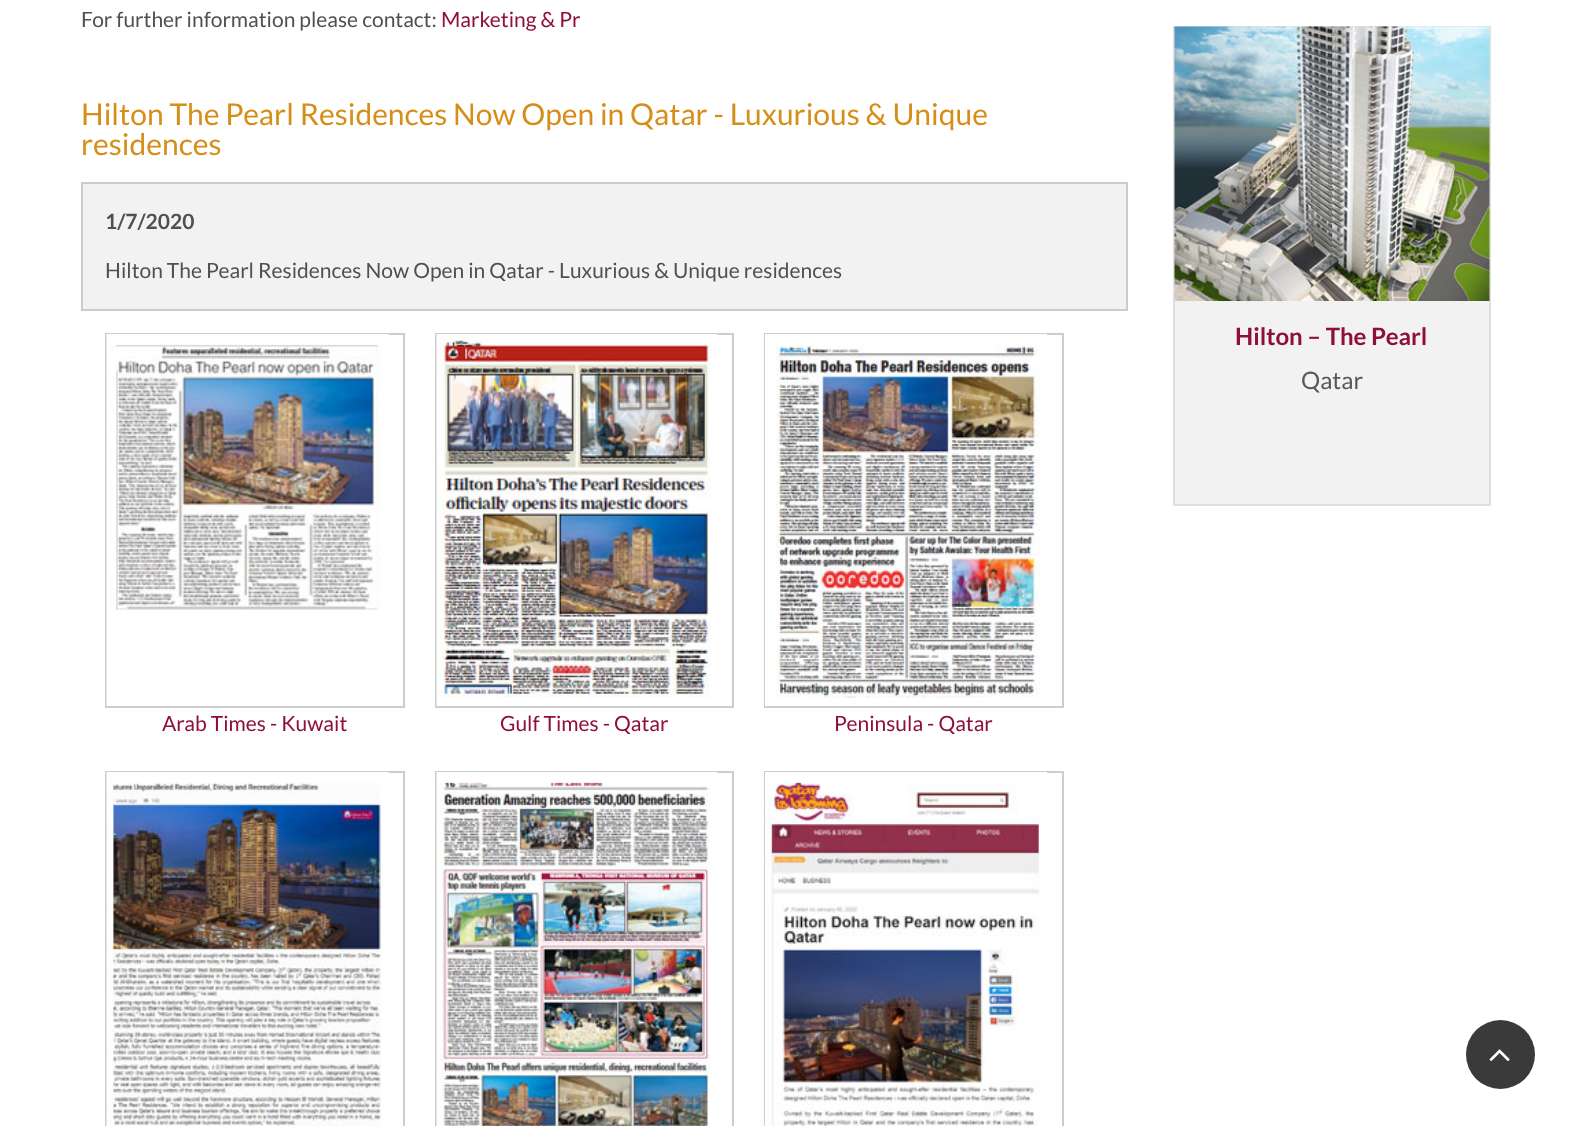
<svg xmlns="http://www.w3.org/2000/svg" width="1571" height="1126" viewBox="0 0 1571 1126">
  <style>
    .t1 { font: 21px Lato; fill: #505050; }
    .t2 { font: 21px Lato; fill: #8f0f3a; }
    .t3 { font: 30px Lato; fill: #d68e19; }
    .t4 { font: bold 21px Lato; fill: #505050; }
    .t5 { font: bold 24px Lato; fill: #8f0f3a; }
    .t6 { font: 24px Lato; fill: #58585a; }
  </style>
  <rect width="100%" height="100%" fill="#fff"/>
  <text x="81" y="27" class="t1">For further information please contact:</text>
  <text x="441" y="27" class="t2">Marketing &amp; Pr</text>
  <text x="81" y="125" class="t3">Hilton The Pearl Residences Now Open in Qatar - Luxurious &amp; Unique</text>
  <text x="81" y="155" class="t3">residences</text>
  <rect x="82" y="183" width="1045" height="127" fill="#f2f2f2" stroke="#ccc" stroke-width="2"/>
  <text x="105" y="229" class="t4">1/7/2020</text>
  <text x="105" y="278" class="t1">Hilton The Pearl Residences Now Open in Qatar - Luxurious &amp; Unique residences</text>
  <rect x="106" y="334" width="298" height="373" fill="none" stroke="#cdcdcd" stroke-width="2"/>
  <image x="106" y="334" width="283" height="372" href="images/1.png"/>
  <text x="162" y="731" class="t2">Arab Times - Kuwait</text>
  <rect x="436" y="334" width="297" height="373" fill="none" stroke="#cdcdcd" stroke-width="2"/>
  <image x="436" y="334" width="281" height="372" href="images/2.png"/>
  <text x="500" y="731" class="t2">Gulf Times - Qatar</text>
  <rect x="765" y="334" width="298" height="373" fill="none" stroke="#cdcdcd" stroke-width="2"/>
  <image x="765" y="334" width="282" height="372" href="images/3.png"/>
  <text x="834" y="731" class="t2">Peninsula - Qatar</text>
  <rect x="106" y="772" width="298" height="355" fill="none" stroke="#cdcdcd" stroke-width="2"/>
  <image x="106" y="772" width="283" height="354" href="images/4.png"/>
  <rect x="436" y="772" width="297" height="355" fill="none" stroke="#cdcdcd" stroke-width="2"/>
  <image x="436" y="772" width="281" height="354" href="images/5.png"/>
  <rect x="765" y="772" width="298" height="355" fill="none" stroke="#cdcdcd" stroke-width="2"/>
  <image x="765" y="772" width="282" height="354" href="images/6.png"/>
  <rect x="1175" y="301" width="314" height="203" fill="#f2f2f2"/>
  <rect x="1174" y="27" width="316" height="478" fill="none" stroke="#e1e0e0" stroke-width="2"/>
  <image x="1174" y="26" width="316" height="275" href="images/7.png"/>
  <text x="1235" y="345" class="t5">Hilton – The Pearl</text>
  <text x="1301" y="389" class="t6">Qatar</text>
  <circle cx="1500.5" cy="1054.5" r="34.5" fill="#3a3a3a"/>
  <image x="1489" y="1049" width="21" height="12" href="images/8.png"/>
</svg>
